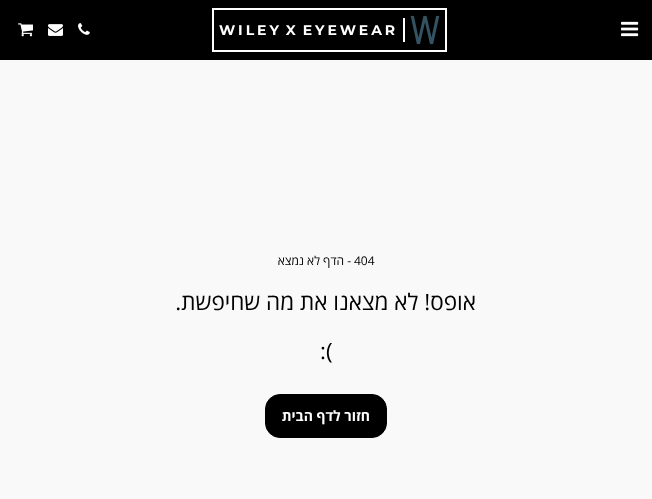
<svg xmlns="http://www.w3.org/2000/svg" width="652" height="499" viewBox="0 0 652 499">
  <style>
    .t1 { font: bold 14px Montserrat; letter-spacing: 3px; fill: #fff; }
    .t2 { font: 12px Open Sans; fill: #000; }
    .t3 { font: 12px Open Sans; direction: rtl; fill: #000; }
    .t4 { font: 22.5px Open Sans; direction: rtl; fill: #000; }
    .t5 { font: 22.5px Open Sans; fill: #000; }
    .t6 { font: bold 14px Open Sans; direction: rtl; fill: #fff; }
  </style>
  <rect width="100%" height="100%" fill="#f9f9f9"/>
  <rect x="0" y="0" width="652" height="60" fill="#000"/>
  <image x="621" y="21" width="18" height="16" href="images/1.png"/>
  <rect x="213" y="9" width="233" height="42" fill="none" stroke="#fff" stroke-width="2"/>
  <image x="410" y="15" width="30" height="30" href="images/2.png"/>
  <rect x="403" y="18" width="2" height="24" fill="#fff"/>
  <text x="219" y="35" word-spacing="-3" class="t1">WILEY X EYEWEAR</text>
  <image x="78" y="23" width="12" height="12" href="images/3.png"/>
  <image x="48" y="24" width="15" height="12" href="images/4.png"/>
  <image x="18" y="23" width="15" height="14" href="images/5.png"/>
  <text x="354" y="265" class="t2">404</text>
  <text x="351" y="265" class="t3">- הדף לא נמצא</text>
  <text x="476" y="310" class="t4">אופס! לא מצאנו את מה שחיפשת.</text>
  <text x="320" y="359" class="t5">:(</text>
  <rect x="265.5" y="394.5" width="121" height="43" rx="14.5" fill="#000" stroke="#000"/>
  <text x="370" y="421" class="t6">חזור לדף הבית</text>
</svg>
